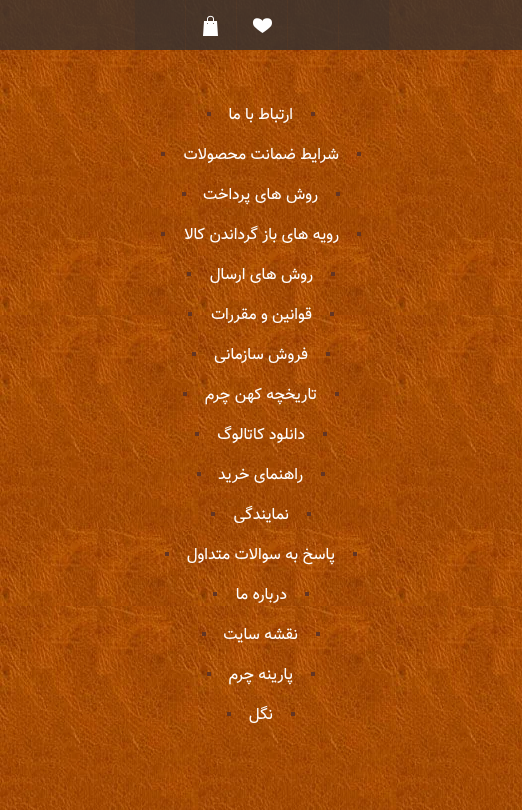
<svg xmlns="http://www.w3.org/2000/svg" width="522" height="810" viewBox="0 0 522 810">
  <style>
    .t1 { font: 16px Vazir; direction: rtl; fill: #fff; }
  </style>
  <rect width="100%" height="100%" fill="#fff"/>
  <image x="0" y="0" width="522" height="810" href="images/3.png"/>
  <rect x="0" y="0" width="522" height="50" fill="#393230cc"/>
  <rect x="339" y="0" width="50" height="50" fill="#3932304d"/>
  <rect x="288" y="0" width="50" height="50" fill="#3932304d"/>
  <rect x="237" y="0" width="50" height="50" fill="#3932304d"/>
  <image x="252" y="18" width="20" height="15" href="images/1.png"/>
  <rect x="186" y="0" width="50" height="50" fill="#3932304d"/>
  <image x="203" y="15" width="15" height="21" href="images/2.png"/>
  <rect x="135" y="0" width="50" height="50" fill="#3932304d"/>
  <rect x="311" y="112" width="4" height="4" fill="#653522"/>
  <text x="293" y="119" class="t1">ارتباط با ما</text>
  <rect x="207" y="112" width="4" height="4" fill="#653522"/>
  <rect x="357" y="152" width="4" height="4" fill="#653522"/>
  <text x="339" y="159" class="t1">شرایط ضمانت محصولات</text>
  <rect x="161" y="152" width="4" height="4" fill="#653522"/>
  <rect x="336" y="192" width="4" height="4" fill="#653522"/>
  <text x="318" y="199" class="t1">روش های پرداخت</text>
  <rect x="182" y="192" width="4" height="4" fill="#653522"/>
  <rect x="357" y="232" width="4" height="4" fill="#653522"/>
  <text x="339" y="239" class="t1">رویه های باز گرداندن کالا</text>
  <rect x="161" y="232" width="4" height="4" fill="#653522"/>
  <rect x="331" y="272" width="4" height="4" fill="#653522"/>
  <text x="313" y="279" class="t1">روش های ارسال</text>
  <rect x="187" y="272" width="4" height="4" fill="#653522"/>
  <rect x="330" y="312" width="4" height="4" fill="#653522"/>
  <text x="312" y="319" class="t1">قوانین و مقررات</text>
  <rect x="188" y="312" width="4" height="4" fill="#653522"/>
  <rect x="326" y="352" width="4" height="4" fill="#653522"/>
  <text x="308" y="359" class="t1">فروش سازمانی</text>
  <rect x="192" y="352" width="4" height="4" fill="#653522"/>
  <rect x="335" y="392" width="4" height="4" fill="#653522"/>
  <text x="317" y="399" class="t1">تاریخچه کهن چرم</text>
  <rect x="183" y="392" width="4" height="4" fill="#653522"/>
  <rect x="323" y="432" width="4" height="4" fill="#653522"/>
  <text x="305" y="439" class="t1">دانلود کاتالوگ</text>
  <rect x="195" y="432" width="4" height="4" fill="#653522"/>
  <rect x="321" y="472" width="4" height="4" fill="#653522"/>
  <text x="303" y="479" class="t1">راهنمای خرید</text>
  <rect x="197" y="472" width="4" height="4" fill="#653522"/>
  <rect x="307" y="512" width="4" height="4" fill="#653522"/>
  <text x="289" y="519" class="t1">نمایندگی</text>
  <rect x="211" y="512" width="4" height="4" fill="#653522"/>
  <rect x="353" y="552" width="4" height="4" fill="#653522"/>
  <text x="335" y="559" class="t1">پاسخ به سوالات متداول</text>
  <rect x="165" y="552" width="4" height="4" fill="#653522"/>
  <rect x="305" y="592" width="4" height="4" fill="#653522"/>
  <text x="287" y="599" class="t1">درباره ما</text>
  <rect x="213" y="592" width="4" height="4" fill="#653522"/>
  <rect x="316" y="632" width="4" height="4" fill="#653522"/>
  <text x="298" y="639" class="t1">نقشه سایت</text>
  <rect x="202" y="632" width="4" height="4" fill="#653522"/>
  <rect x="311" y="672" width="4" height="4" fill="#653522"/>
  <text x="293" y="679" class="t1">پارینه چرم</text>
  <rect x="207" y="672" width="4" height="4" fill="#653522"/>
  <rect x="291" y="712" width="4" height="4" fill="#653522"/>
  <text x="273" y="719" class="t1">نگل</text>
  <rect x="227" y="712" width="4" height="4" fill="#653522"/>
</svg>
